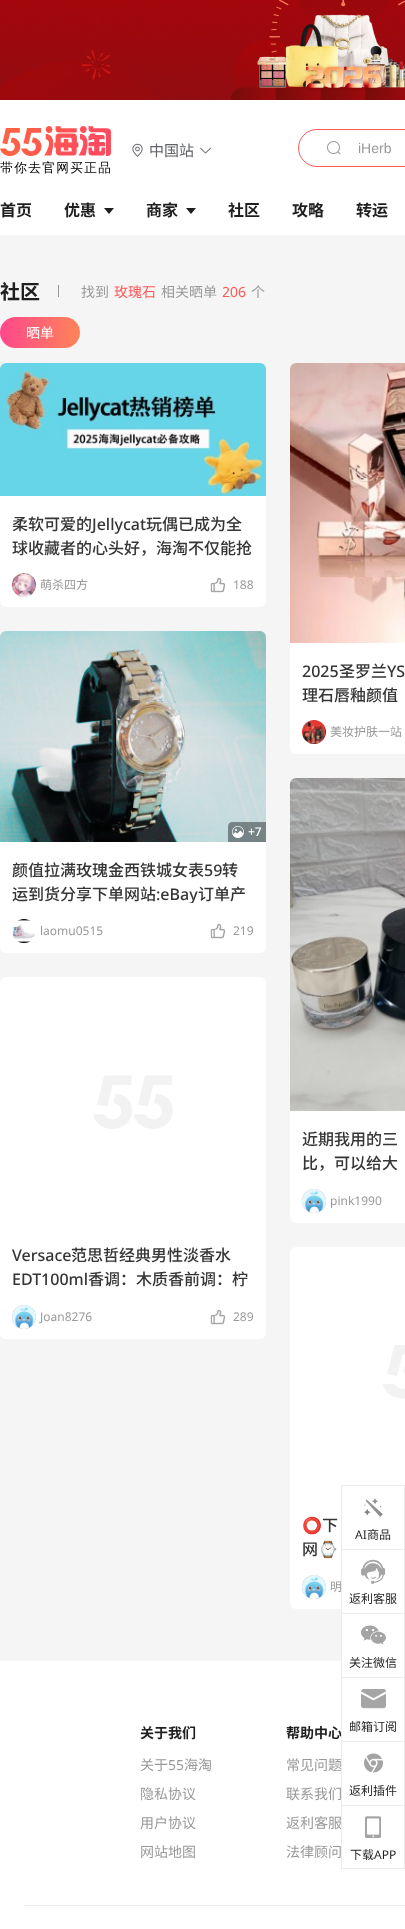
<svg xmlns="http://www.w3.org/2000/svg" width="405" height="1929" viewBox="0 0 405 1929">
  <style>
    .t1 { font: 14px Liberation Sans; fill: #999; }
    .t2 { font: bold 16px Noto Sans CJK SC; fill: #1f1f1f; }
    .t3 { font: 15px Noto Sans CJK SC; fill: #606266; }
    .t4 { font: bold 20px Noto Sans CJK SC; fill: #1f1f1f; }
    .t5 { font: 14px Noto Sans CJK SC; fill: #999; }
    .t6 { font: 14px Noto Sans CJK SC; fill: #fe5a58; }
    .t7 { font: 14px Noto Sans; fill: #fe5a58; }
    .t8 { font: 14px Noto Sans CJK SC; fill: #fff; }
    .t9 { font: 500 16px Noto Sans CJK SC; fill: #353535; }
    .t10 { font: 500 16px Noto Sans; fill: #353535; }
    .t11 { font: 12px Noto Sans CJK SC; fill: #999; }
    .t12 { font: 12px Noto Sans; fill: #999; }
    .t13 { font: 500 12px Noto Sans; fill: #fff; }
    .t14 { font: 16px Noto Color Emoji; fill: #353535; }
    .t15 { font: bold 14px Noto Sans CJK SC; fill: #1f1f1f; }
    .t16 { font: 14px Noto Sans; fill: #999; }
    .t17 { font: 12px Noto Sans; fill: #1f1f1f; }
    .t18 { font: 12px Noto Sans CJK SC; fill: #1f1f1f; }
  </style>
  <defs>
    <linearGradient id="g1" gradientUnits="userSpaceOnUse" x1="0" y1="333" x2="80" y2="333"><stop offset="0" stop-color="#ff488c"/><stop offset="1" stop-color="#fe8458"/></linearGradient>
    <clipPath id="clip1"><rect x="12" y="858" width="242" height="45"/></clipPath>
  </defs>
  <rect width="100%" height="100%" fill="#f5f5f5"/>
  <rect x="0" y="100" width="405" height="135" fill="#fff"/>
  <rect x="298.5" y="129.5" width="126" height="37" rx="18.5" fill="none" stroke="#fe5a58"/>
  <image x="327" y="141" width="14" height="14" href="images/1.png"/>
  <text x="358" y="153" class="t1">iHerb</text>
  <text x="0" y="216" class="t2">首页</text>
  <text x="64" y="216" class="t2">优惠</text>
  <path d="M104 208L109 214L114 208Z" fill="#1f1f1f"/>
  <text x="146" y="216" class="t2">商家</text>
  <path d="M186 208L191 214L196 208Z" fill="#1f1f1f"/>
  <text x="228" y="216" class="t2">社区</text>
  <text x="292" y="216" class="t2">攻略</text>
  <text x="356" y="216" class="t2">转运</text>
  <image x="0" y="0" width="405" height="100" href="images/2.png"/>
  <image x="0" y="126" width="111" height="48" href="images/3.png"/>
  <image x="132" y="143" width="11" height="14" href="images/4.png"/>
  <text x="149" y="156" class="t3">中国站</text>
  <image x="200" y="147" width="11" height="7" href="images/5.png"/>
  <text x="0" y="299" class="t4">社区</text>
  <rect x="58" y="285" width="1" height="12" fill="#999"/>
  <text x="81" y="297" class="t5">找到</text>
  <text x="114" y="297" class="t6">玫瑰石</text>
  <text x="161" y="297" class="t5">相关晒单</text>
  <text x="222" y="297" class="t7">206</text>
  <text x="251" y="297" class="t5">个</text>
  <rect x="0" y="317" width="80" height="31" rx="15.5" fill="url(#g1)"/>
  <text x="26" y="338" class="t8">晒单</text>
  <rect x="0" y="363" width="266" height="244" rx="6" fill="#fff"/>
  <image x="0" y="363" width="266" height="133" href="images/6.png"/>
  <text x="12" y="530" class="t9">柔软可爱的</text>
  <text x="92" y="530" class="t10">Jellycat</text>
  <text x="146" y="530" class="t9">玩偶已成为全</text>
  <text x="12" y="554" class="t9">球收藏者的心头好，海淘不仅能抢</text>
  <image x="12" y="573" width="24" height="24" href="images/7.png"/>
  <text x="40" y="589" class="t11">萌杀四方</text>
  <image x="210" y="577" width="16" height="16" href="images/8.png"/>
  <text x="233" y="589" class="t12">188</text>
  <rect x="0" y="631" width="266" height="322" rx="6" fill="#fff"/>
  <image x="0" y="631" width="266" height="211" href="images/9.png"/>
  <path d="M232 822H266V842H228V826C228 824 230 822 232 822Z" fill="#00000066"/>
  <image x="232" y="826" width="12" height="12" href="images/10.png"/>
  <text x="248" y="836" class="t13">+7</text>
  <text x="12" y="876" class="t9">颜值拉满玫瑰金西铁城女表</text>
  <text x="204" y="876" class="t10">59</text>
  <text x="222" y="876" class="t9">转</text>
  <text x="12" y="900" class="t9">运到货分享下单网站</text>
  <g clip-path="url(#clip1)">
    <text x="156" y="900" class="t10">:eBay</text>
  </g>
  <text x="198" y="900" class="t9">订单产</text>
  <image x="12" y="919" width="24" height="24" href="images/11.png"/>
  <text x="40" y="935" class="t12">laomu0515</text>
  <image x="210" y="923" width="16" height="16" href="images/8.png"/>
  <text x="233" y="935" class="t12">219</text>
  <rect x="0" y="977" width="266" height="362" rx="6" fill="#fff"/>
  <image x="93" y="1076" width="80" height="53" href="images/12.png"/>
  <image x="93" y="1075" width="79" height="45" href="images/13.png"/>
  <text x="12" y="1261" class="t10">Versace</text>
  <text x="71" y="1261" class="t9">范思哲经典男性淡香水</text>
  <text x="12" y="1285" class="t10">EDT100ml</text>
  <text x="88" y="1285" class="t9">香调：木质香前调：柠</text>
  <circle cx="24" cy="1317" r="12" fill="#c0c4cc"/>
  <image x="12" y="1305" width="24" height="24" href="images/14.png"/>
  <text x="40" y="1321" class="t12">Joan8276</text>
  <image x="210" y="1309" width="16" height="16" href="images/8.png"/>
  <text x="233" y="1321" class="t12">289</text>
  <rect x="290" y="363" width="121" height="391" rx="6" fill="#fff"/>
  <image x="290" y="363" width="115" height="280" href="images/15.png"/>
  <text x="302" y="677" class="t10">2025</text>
  <text x="339" y="677" class="t9">圣罗兰</text>
  <text x="387" y="677" class="t10">YS</text>
  <text x="302" y="701" class="t9">理石唇釉颜值</text>
  <image x="302" y="720" width="24" height="24" href="images/16.png"/>
  <text x="330" y="736" class="t11">美妆护肤一站</text>
  <rect x="290" y="778" width="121" height="445" rx="6" fill="#fff"/>
  <image x="290" y="778" width="115" height="333" href="images/17.png"/>
  <text x="302" y="1145" class="t9">近期我用的三</text>
  <text x="302" y="1169" class="t9">比，可以给大</text>
  <circle cx="314" cy="1201" r="12" fill="#c0c4cc"/>
  <image x="302" y="1189" width="24" height="24" href="images/18.png"/>
  <text x="330" y="1205" class="t12">pink1990</text>
  <rect x="290" y="1247" width="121" height="362" rx="6" fill="#fff"/>
  <image x="383" y="1345" width="22" height="53" href="images/19.png"/>
  <image x="383" y="1354" width="22" height="45" href="images/20.png"/>
  <text x="302" y="1531" class="t14">⭕️</text>
  <text x="322" y="1531" class="t9">下</text>
  <text x="302" y="1555" class="t9">网</text>
  <text x="318" y="1555" class="t14">⌚️</text>
  <circle cx="314" cy="1587" r="12" fill="#c0c4cc"/>
  <image x="302" y="1575" width="24" height="24" href="images/18.png"/>
  <text x="330" y="1591" class="t11">明</text>
  <rect x="0" y="1661" width="405" height="268" fill="#fff"/>
  <text x="140" y="1738" class="t15">关于我们</text>
  <text x="140" y="1770" class="t5">关于</text>
  <text x="168" y="1770" class="t16">55</text>
  <text x="184" y="1770" class="t5">海淘</text>
  <text x="140" y="1799" class="t5">隐私协议</text>
  <text x="140" y="1828" class="t5">用户协议</text>
  <text x="140" y="1857" class="t5">网站地图</text>
  <text x="286" y="1738" class="t15">帮助中心</text>
  <text x="286" y="1770" class="t5">常见问题</text>
  <text x="286" y="1799" class="t5">联系我们</text>
  <text x="286" y="1828" class="t5">返利客服</text>
  <text x="286" y="1857" class="t5">法律顾问</text>
  <rect x="24" y="1905" width="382" height="1" rx="0.5" fill="#eaeaea"/>
  <rect x="341.5" y="1485.5" width="63" height="63" fill="none" stroke="#ececec"/>
  <image x="364" y="1498" width="19" height="19" href="images/21.png"/>
  <text x="355" y="1539" class="t17">AI</text>
  <text x="367" y="1539" class="t18">商品</text>
  <rect x="342" y="1548" width="62" height="1" fill="#fff"/>
  <rect x="342" y="1609" width="62" height="2" fill="#fff"/>
  <rect x="341.5" y="1549.5" width="63" height="63" fill="none" stroke="#ececec"/>
  <image x="361" y="1559" width="25" height="25" href="images/22.png"/>
  <text x="349" y="1603" class="t18">返利客服</text>
  <rect x="342" y="1611" width="62" height="2" fill="#fff"/>
  <rect x="342" y="1614" width="62" height="47" fill="#fff"/>
  <rect x="341.5" y="1613.5" width="63" height="63" fill="none" stroke="#ececec"/>
  <image x="361" y="1625" width="25" height="20" href="images/23.png"/>
  <text x="349" y="1667" class="t18">关注微信</text>
  <rect x="342" y="1676" width="62" height="1" fill="#fff"/>
  <rect x="341.5" y="1677.5" width="63" height="63" fill="none" stroke="#ececec"/>
  <image x="361" y="1689" width="25" height="20" href="images/24.png"/>
  <text x="349" y="1731" class="t18">邮箱订阅</text>
  <rect x="342" y="1740" width="62" height="1" fill="#fff"/>
  <rect x="341.5" y="1741.5" width="63" height="63" fill="none" stroke="#ececec"/>
  <image x="364" y="1753" width="19" height="20" href="images/25.png"/>
  <text x="349" y="1795" class="t18">返利插件</text>
  <rect x="342" y="1804" width="62" height="1" fill="#fff"/>
  <rect x="341.5" y="1805.5" width="63" height="63" fill="none" stroke="#ececec"/>
  <image x="365" y="1816" width="16" height="22" href="images/26.png"/>
  <text x="350" y="1859" class="t18">下载</text>
  <text x="374" y="1859" class="t17">APP</text>
</svg>
